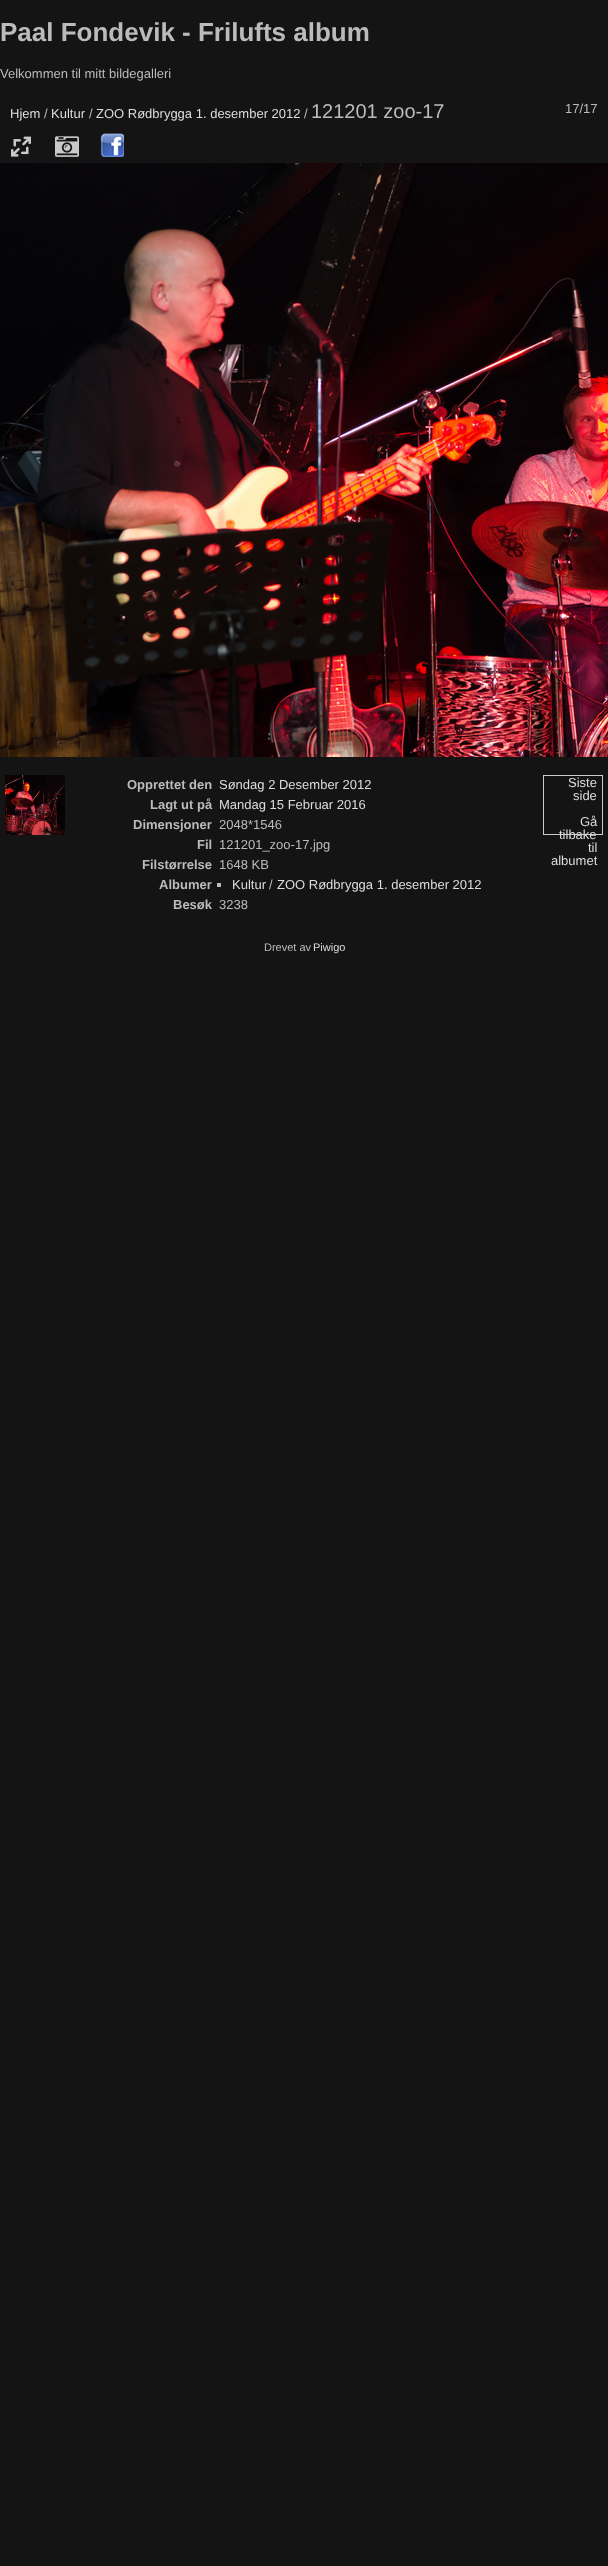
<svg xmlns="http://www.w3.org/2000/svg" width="608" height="2566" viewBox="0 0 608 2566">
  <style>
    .t1 { font: bold 26px Liberation Sans; fill: #bbb; }
    .t2 { font: 13px Liberation Sans; fill: #bbb; }
    .t3 { font: 13px Liberation Sans; fill: #ddd; }
    .t4 { font: 20px Liberation Sans; fill: #bbb; }
    .t5 { font: bold 13px Liberation Sans; fill: #bbb; }
    .t6 { font: 11px Liberation Sans; fill: #bbb; }
    .t7 { font: 11px Liberation Sans; fill: #ddd; }
  </style>
  <rect width="100%" height="100%" fill="#141414"/>
  <text x="0" y="41" class="t1">Paal Fondevik - Frilufts album</text>
  <text x="0" y="78" class="t2">Velkommen til mitt bildegalleri</text>
  <text x="10" y="118" class="t3">Hjem</text>
  <text x="44" y="118" class="t2">/</text>
  <text x="51" y="118" class="t3">Kultur</text>
  <text x="89" y="118" class="t2">/</text>
  <text x="96" y="118" class="t3">ZOO Rødbrygga 1. desember 2012</text>
  <text x="304" y="118" class="t2">/</text>
  <text x="311" y="118" class="t4">121201 zoo-17</text>
  <text x="565" y="113" class="t2">17/17</text>
  <image x="11" y="136" width="20" height="21" href="images/1.png"/>
  <image x="55" y="136" width="24" height="21" href="images/2.png"/>
  <image x="100" y="133" width="24" height="24" href="images/3.png"/>
  <image x="0" y="163" width="608" height="594" href="images/4.png"/>
  <text x="127" y="789" class="t5">Opprettet den</text>
  <text x="219" y="789" class="t3">Søndag 2 Desember 2012</text>
  <text x="150" y="809" class="t5">Lagt ut på</text>
  <text x="219" y="809" class="t3">Mandag 15 Februar 2016</text>
  <text x="133" y="829" class="t5">Dimensjoner</text>
  <text x="219" y="829" class="t2">2048*1546</text>
  <text x="197" y="849" class="t5">Fil</text>
  <text x="219" y="849" class="t2">121201_zoo-17.jpg</text>
  <text x="142" y="869" class="t5">Filstørrelse</text>
  <text x="219" y="869" class="t2">1648 KB</text>
  <text x="159" y="889" class="t5">Albumer</text>
  <rect x="217" y="883" width="4" height="4" fill="#bbb"/>
  <text x="232" y="889" class="t3">Kultur</text>
  <text x="269" y="889" class="t2">/</text>
  <text x="277" y="889" class="t3">ZOO Rødbrygga 1. desember 2012</text>
  <text x="173" y="909" class="t5">Besøk</text>
  <text x="219" y="909" class="t2">3238</text>
  <image x="5" y="775" width="60" height="60" href="images/5.png"/>
  <rect x="543.5" y="775.5" width="59" height="59" fill="none" stroke="#ccc"/>
  <text x="568" y="787" class="t3">Siste</text>
  <text x="573" y="800" class="t3">side</text>
  <text x="580" y="826" class="t3">Gå</text>
  <text x="559" y="839" class="t3">tilbake</text>
  <text x="588" y="852" class="t3">til</text>
  <text x="551" y="865" class="t3">albumet</text>
  <text x="264" y="951" class="t6">Drevet av</text>
  <text x="313" y="951" class="t7">Piwigo</text>
</svg>
